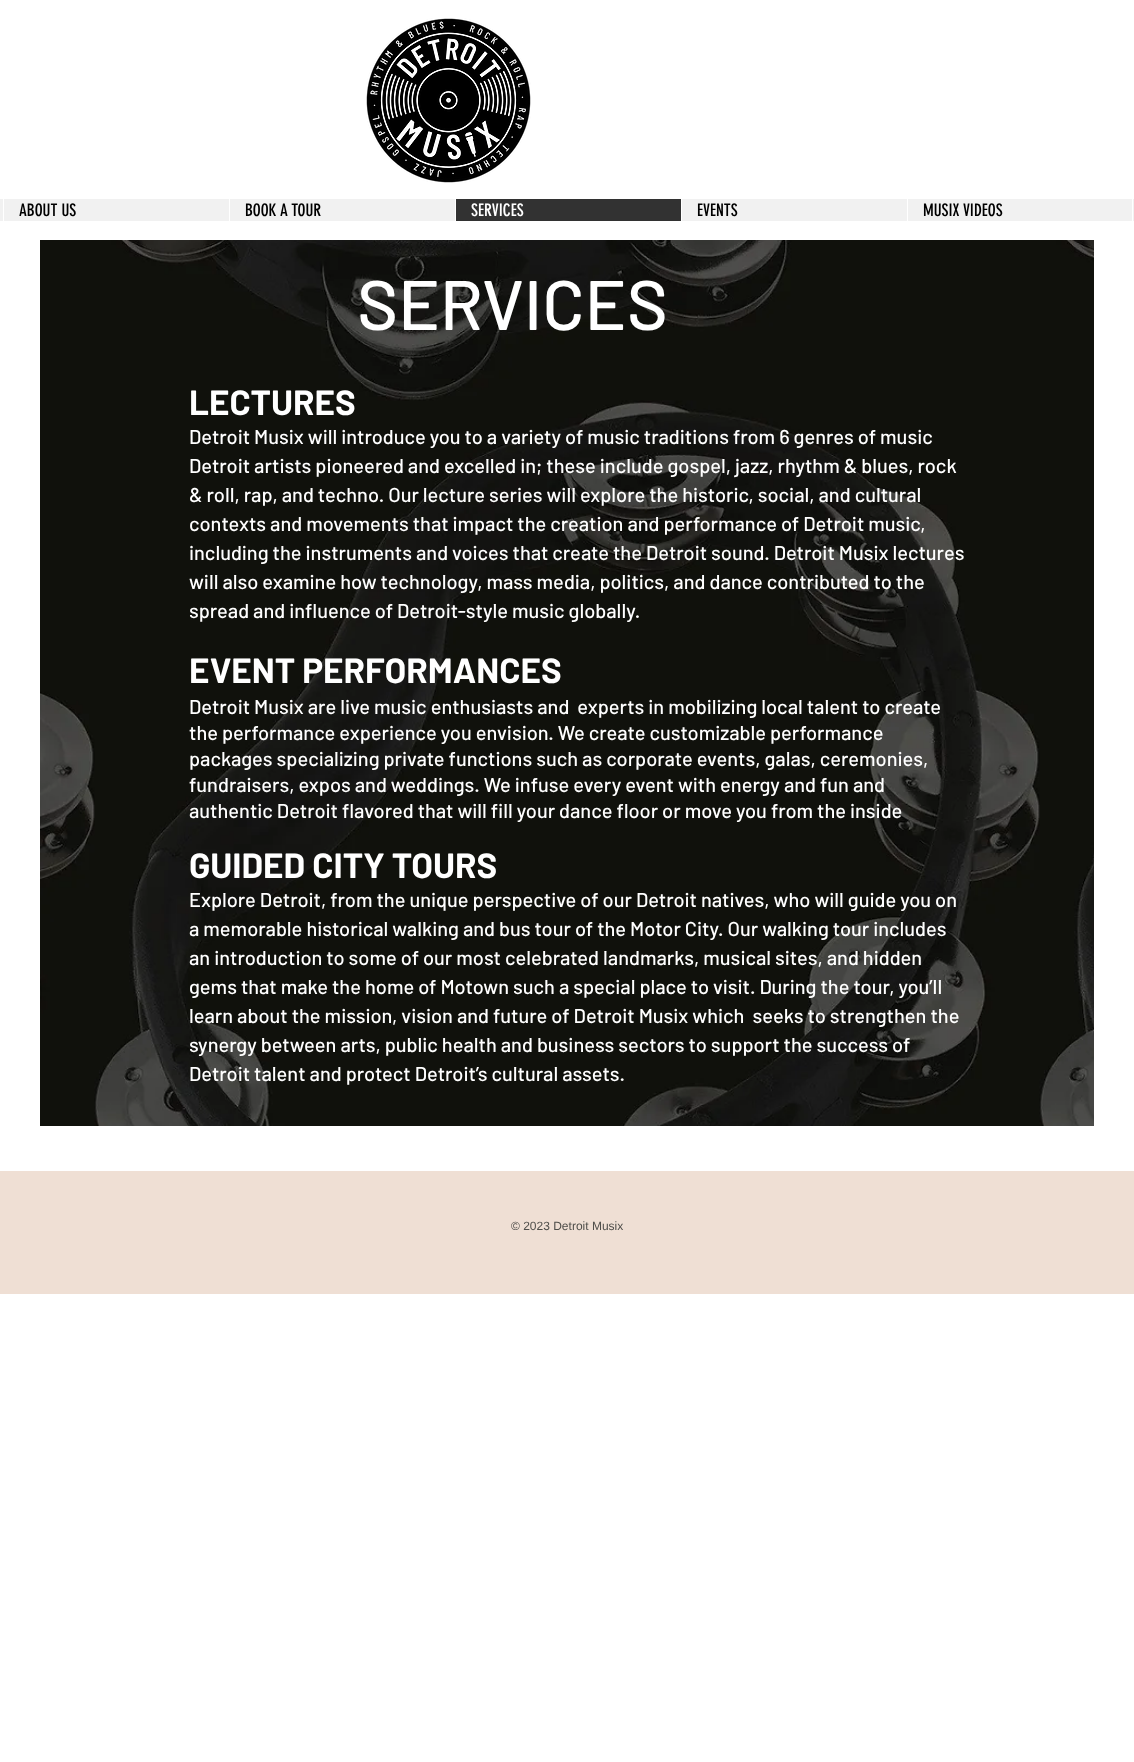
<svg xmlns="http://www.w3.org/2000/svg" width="1134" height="1762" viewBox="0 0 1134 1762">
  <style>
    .t1 { font: 17px 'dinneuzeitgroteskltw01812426'; fill: #000; }
    .t2 { font: 17px 'dinneuzeitgroteskltw01812426'; fill: #fff; }
    .t3 { font: 500 70px Barlow; fill: #fff; }
    .t4 { font: bold 35px Barlow; fill: #fff; }
    .t5 { font: 500 20px Barlow; fill: #fff; }
    .t6 { font: 12px Liberation Sans; fill: #4f4e4a; }
  </style>
  <rect width="100%" height="100%" fill="#fff"/>
  <image x="366" y="18" width="165" height="165" href="images/1.png"/>
  <rect x="0" y="199" width="1134" height="22" fill="#f1f1f1"/>
  <rect x="3" y="199" width="1" height="22" fill="#fff"/>
  <text x="19" y="216" class="t1">ABOUT US</text>
  <rect x="229" y="199" width="1" height="22" fill="#fff"/>
  <text x="245" y="216" class="t1">BOOK A TOUR</text>
  <rect x="456" y="199" width="225" height="22" fill="#323232"/>
  <rect x="455" y="199" width="1" height="22" fill="#fff"/>
  <text x="471" y="216" class="t2">SERVICES</text>
  <rect x="681" y="199" width="1" height="22" fill="#fff"/>
  <text x="697" y="216" class="t1">EVENTS</text>
  <rect x="907" y="199" width="1" height="22" fill="#fff"/>
  <text x="923" y="216" class="t1">MUSIX VIDEOS</text>
  <rect x="1132" y="199" width="1" height="22" fill="#fff"/>
  <image x="40" y="240" width="1054" height="886" href="images/2.png"/>
  <text x="357" y="330" class="t3">SERVICES</text>
  <text x="189" y="415" class="t4">LECTURES</text>
  <text x="189" y="444" class="t5">Detroit Musix will introduce you to a variety of music traditions from 6 genres of music</text>
  <text x="189" y="473" class="t5">Detroit artists pioneered and excelled in; these include gospel, jazz, rhythm &amp; blues, rock</text>
  <text x="189" y="502" class="t5">&amp; roll, rap, and techno. Our lecture series will explore the historic, social, and cultural</text>
  <text x="189" y="531" class="t5">contexts and movements that impact the creation and performance of Detroit music,</text>
  <text x="189" y="560" class="t5">including the instruments and voices that create the Detroit sound. Detroit Musix lectures</text>
  <text x="189" y="589" class="t5">will also examine how technology, mass media, politics, and dance contributed to the</text>
  <text x="189" y="618" class="t5">spread and influence of Detroit-style music globally.</text>
  <text x="189" y="683" class="t4">EVENT PERFORMANCES</text>
  <text x="189" y="714" class="t5" xml:space="preserve">Detroit Musix are live music enthusiasts and  experts in mobilizing local talent to create</text>
  <text x="189" y="740" class="t5">the performance experience you envision. We create customizable performance</text>
  <text x="189" y="766" class="t5">packages specializing private functions such as corporate events, galas, ceremonies,</text>
  <text x="189" y="792" class="t5">fundraisers, expos and weddings. We infuse every event with energy and fun and</text>
  <text x="189" y="818" class="t5">authentic Detroit flavored that will fill your dance floor or move you from the</text>
  <text x="850" y="818" class="t5">inside</text>
  <text x="189" y="878" class="t4">GUIDED CITY TOURS</text>
  <text x="189" y="907" class="t5">Explore Detroit, from the unique perspective of our Detroit natives, who will guide you on</text>
  <text x="189" y="936" class="t5">a memorable historical walking and bus tour of the Motor City. Our walking tour includes</text>
  <text x="189" y="965" class="t5">an introduction to some of our most celebrated landmarks, musical sites, and hidden</text>
  <text x="189" y="994" class="t5">gems that make the home of Motown such a special place to visit. During the tour, you’ll</text>
  <text x="189" y="1023" class="t5" xml:space="preserve">learn about the mission, vision and future of Detroit Musix which  seeks to strengthen the</text>
  <text x="189" y="1052" class="t5">synergy between arts, public health and business sectors to support the success of</text>
  <text x="189" y="1081" class="t5">Detroit talent and protect Detroit’s cultural assets.</text>
  <rect x="0" y="1171" width="1134" height="123" fill="#efdfd4"/>
  <text x="511" y="1230" class="t6">© 2023 Detroit Musix</text>
</svg>
